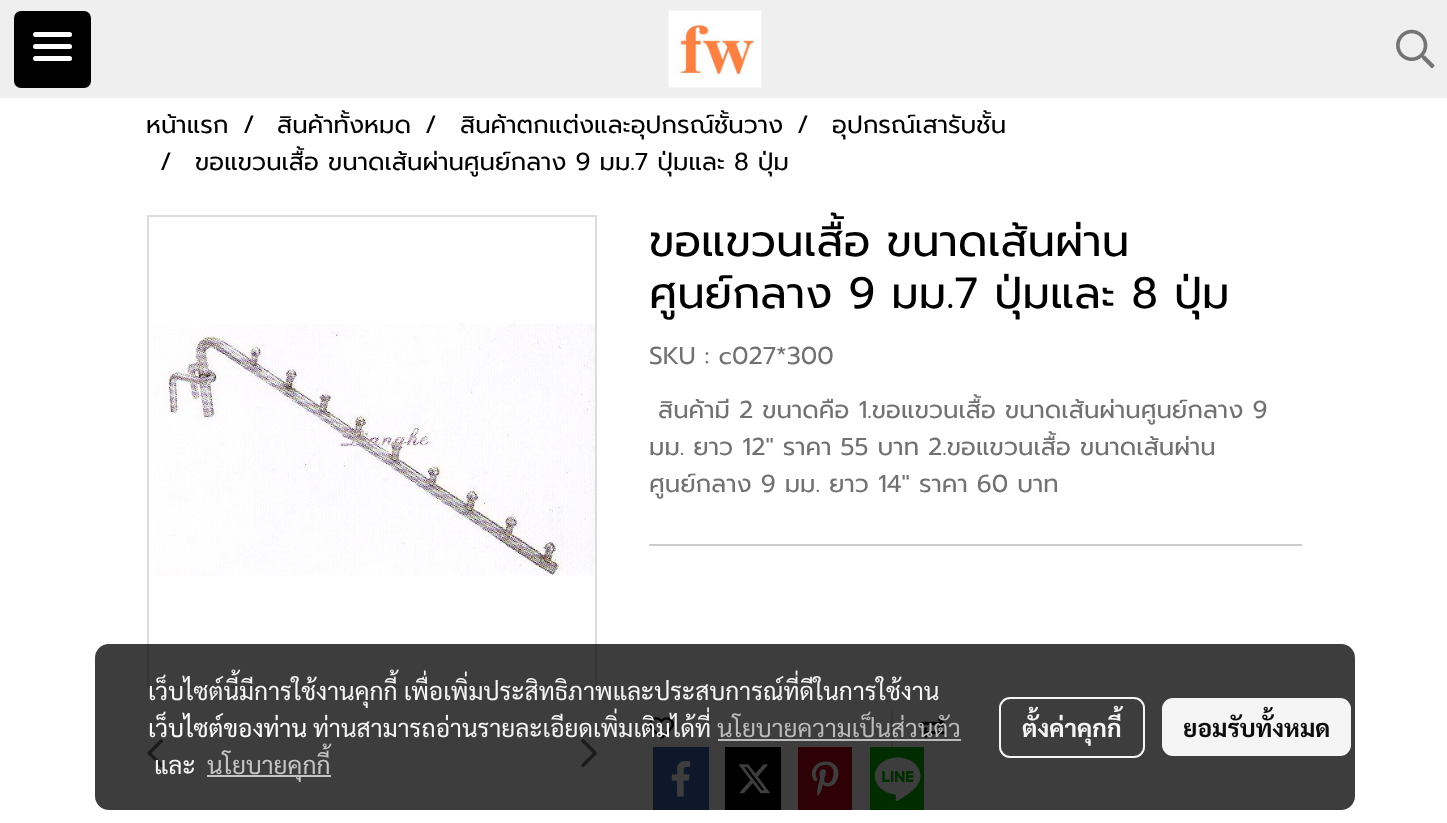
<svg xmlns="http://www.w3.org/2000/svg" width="1447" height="823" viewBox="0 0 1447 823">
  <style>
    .t1 { font: 24.5px Prompt; fill: #000; }
    .t2 { font: 43.75px Prompt; fill: #000; }
    .t3 { font: 24.5px Prompt; fill: #717171; }
    .t4 { font: 24.5px Sarabun; fill: #f5f5f5; }
    .t5 { font: 24.5px Sarabun; fill: #fff; }
    .t6 { font: 24.5px Sarabun; fill: #bbb; }
    .t7 { font: 24.5px Sarabun; fill: #c5c5c5; }
    .t8 { font: bold 24.5px Sarabun; fill: #f5f5f5; }
    .t9 { font: bold 24.5px Sarabun; fill: #0d0d0d; }
  </style>
  <rect width="100%" height="100%" fill="#fff"/>
  <rect x="0" y="0" width="1447" height="98" fill="#efefef"/>
  <rect x="15" y="12" width="75" height="75" rx="6" fill="#000" stroke="#000" stroke-width="2"/>
  <rect x="33" y="44" width="39" height="5" rx="2.5" fill="#fff"/>
  <rect x="33" y="32" width="39" height="5" rx="2.5" fill="#fff"/>
  <rect x="33" y="56" width="39" height="5" rx="2.5" fill="#fff"/>
  <image x="668" y="10" width="94" height="78" href="images/1.png"/>
  <image x="1396" y="29" width="39" height="40" href="images/2.png"/>
  <text x="146" y="133" class="t1">หน้าแรก</text>
  <text x="243" y="133" class="t1">/</text>
  <text x="277" y="133" class="t1">สินค้าทั้งหมด</text>
  <text x="425" y="133" class="t1">/</text>
  <text x="460" y="133" class="t1">สินค้าตกแต่งและอุปกรณ์ชั้นวาง</text>
  <text x="797" y="133" class="t1">/</text>
  <text x="832" y="133" class="t1">อุปกรณ์เสารับชั้น</text>
  <text x="160" y="170" class="t1">/</text>
  <text x="195" y="170" class="t1">ขอแขวนเสื้อ ขนาดเส้นผ่านศูนย์กลาง 9 มม.7 ปุ่มและ 8 ปุ่ม</text>
  <rect x="148" y="216" width="448" height="471" fill="none" stroke="#ddd" stroke-width="2"/>
  <image x="153" y="323" width="442" height="253" href="images/3.png"/>
  <image x="147" y="739" width="17" height="29" href="images/4.png"/>
  <image x="581" y="739" width="17" height="29" href="images/5.png"/>
  <text x="649" y="256" class="t2">ขอแขวนเสื้อ ขนาดเส้นผ่าน</text>
  <text x="649" y="308" class="t2">ศูนย์กลาง 9 มม.7 ปุ่มและ 8 ปุ่ม</text>
  <text x="649" y="364" class="t3">SKU : c027*300</text>
  <text x="658" y="418" class="t3">สินค้ามี 2 ขนาดคือ 1.ขอแขวนเสื้อ ขนาดเส้นผ่านศูนย์กลาง 9</text>
  <text x="649" y="455" class="t3">มม. ยาว 12" ราคา 55 บาท 2.ขอแขวนเสื้อ ขนาดเส้นผ่าน</text>
  <text x="649" y="492" class="t3">ศูนย์กลาง 9 มม. ยาว 14" ราคา 60 บาท</text>
  <rect x="649" y="544" width="653" height="2" fill="#ccc"/>
  <image x="649" y="717" width="25" height="22" href="images/6.png"/>
  <rect x="891" y="711" width="2" height="36" fill="#dedede"/>
  <image x="920" y="718" width="25" height="20" href="images/7.png"/>
  <rect x="653" y="747" width="56" height="63" fill="#4267b2"/>
  <image x="671" y="761" width="20" height="36" href="images/8.png"/>
  <rect x="725" y="747" width="56" height="63" fill="#000"/>
  <image x="738" y="764" width="33" height="30" href="images/9.png"/>
  <rect x="798" y="747" width="54" height="63" fill="#bd081c"/>
  <image x="811" y="761" width="28" height="35" href="images/10.png"/>
  <rect x="870" y="747" width="54" height="63" fill="#00b800"/>
  <image x="874" y="757" width="47" height="44" href="images/11.png"/>
  <rect x="95" y="644" width="1260" height="166" rx="14" fill="#000000c2"/>
  <text x="148" y="700" class="t4">เว็บไซต์นี้มีการใช้งานคุกกี้ เพื่อเพิ่มประสิทธิภาพและประสบการณ์ที่ดีในการใช้งาน</text>
  <text x="148" y="737" class="t5">เว็บไซต์ของท่าน</text>
  <text x="313" y="737" class="t4">ท่านสามารถอ่านรายละเอียดเพิ่มเติมได้ที่</text>
  <text x="717" y="737" class="t6">นโยบายความเป็นส่วนตัว</text>
  <rect x="718" y="739" width="243" height="2" fill="#c2c2c2f2"/>
  <text x="154" y="774" class="t4">และ</text>
  <rect x="207" y="775" width="124" height="2" fill="#c5c5c5"/>
  <text x="207" y="774" class="t7">นโยบายคุกกี้</text>
  <rect x="1000" y="698" width="144" height="59" rx="10" fill="none" stroke="#fffffff2" stroke-width="2"/>
  <text x="1022" y="737" class="t8">ตั้งค่าคุกกี้</text>
  <rect x="1162" y="698" width="189" height="58" rx="11" fill="#fffffff2"/>
  <text x="1183" y="737" class="t9">ยอมรับทั้งหมด</text>
</svg>
